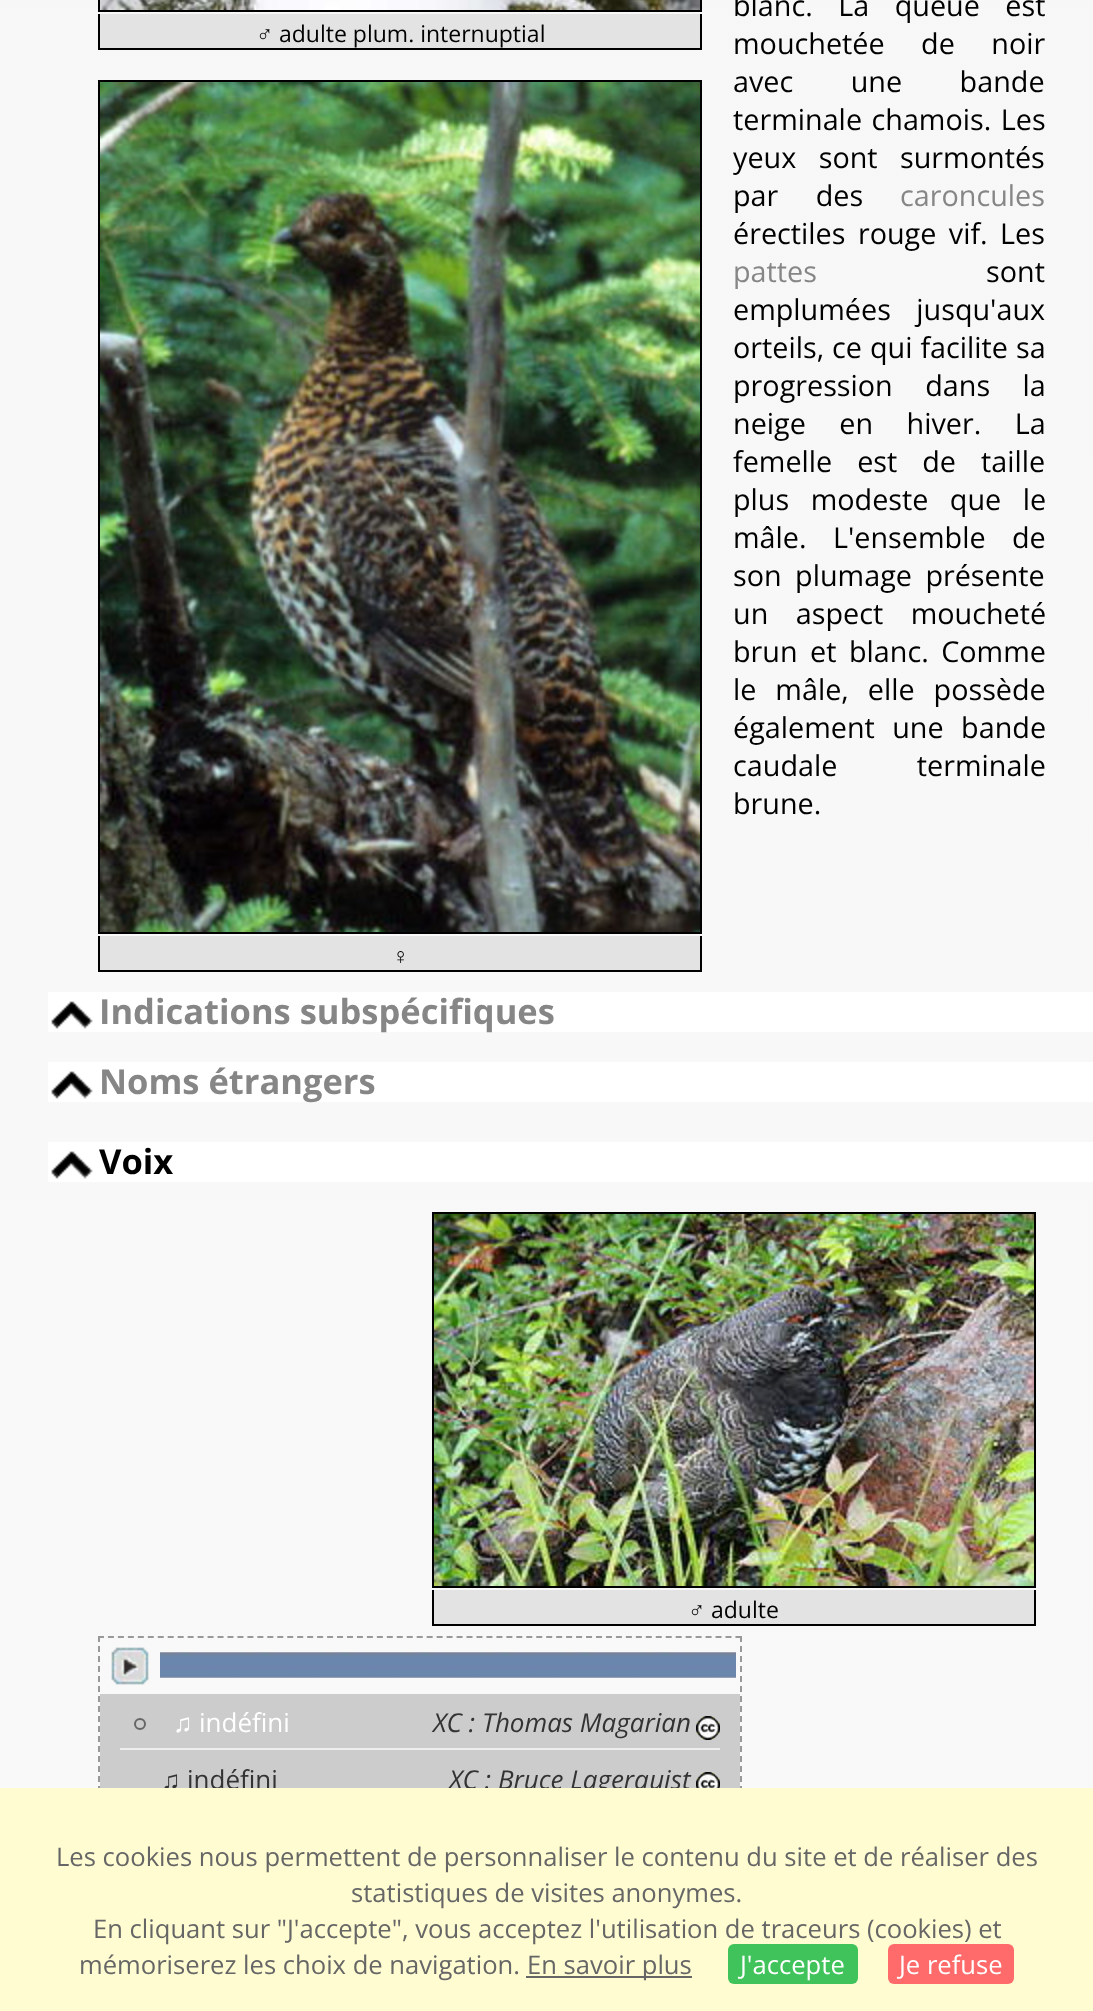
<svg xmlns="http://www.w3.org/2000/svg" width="1093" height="2011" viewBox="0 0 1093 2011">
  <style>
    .t1 { font: 23px Liberation Sans; fill: #000; }
    .t2 { font: 23px Open Sans; fill: #000; }
    .t3 { font: 28.75px Open Sans; fill: #000; }
    .t4 { font: 28.75px Open Sans; fill: #868686; }
    .t5 { font: bold 34.5px Open Sans; fill: #868686; }
    .t6 { font: bold 34.5px Open Sans; fill: #000; }
    .t7 { font: 26px Liberation Sans; fill: #fff; }
    .t8 { font: 26px Open Sans; fill: #fff; }
    .t9 { font: italic 26px Open Sans; fill: #333; }
    .t10 { font: 26px Liberation Sans; fill: #333; }
    .t11 { font: 26px Open Sans; fill: #333; }
    .t12 { font: 25.6px Open Sans; fill: #666; }
    .t13 { font: 25.6px Open Sans; fill: #fff; }
  </style>
  <defs>
    <linearGradient id="g1" gradientUnits="userSpaceOnUse" x1="547" y1="-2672" x2="547" y2="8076"><stop offset="0" stop-color="#f5f5f5"/><stop offset="1" stop-color="#fefefe"/></linearGradient>
  </defs>
  <rect width="100%" height="100%" fill="#fff"/>
  <rect x="0" y="0" width="1093" height="1788" fill="url(#g1)"/>
  <rect x="99" y="-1" width="602" height="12" fill="none" stroke="#000" stroke-width="2"/>
  <image x="100" y="0" width="600" height="10" href="images/1.png"/>
  <rect x="100" y="14" width="600" height="34" fill="#e3e3e3"/>
  <rect x="700" y="14" width="2" height="36" fill="#000"/>
  <rect x="98" y="48" width="604" height="2" fill="#000"/>
  <rect x="98" y="14" width="2" height="36" fill="#000"/>
  <text x="256" y="42" class="t1">♂</text>
  <text x="279" y="42" class="t2">adulte plum. internuptial</text>
  <text x="733" y="16" word-spacing="18" class="t3">blanc. La queue est</text>
  <text x="733" y="54" word-spacing="29" class="t3">mouchetée de noir</text>
  <text x="733" y="92" word-spacing="50" class="t3">avec une bande</text>
  <text x="733" y="130" word-spacing="2" class="t3">terminale chamois. Les</text>
  <text x="733" y="168" word-spacing="15" class="t3">yeux sont surmontés</text>
  <text x="733" y="206" word-spacing="30" class="t3">par des</text>
  <text x="900" y="206" class="t4">caroncules</text>
  <text x="733" y="244" word-spacing="5" class="t3">érectiles rouge vif. Les</text>
  <text x="733" y="282" class="t4">pattes</text>
  <text x="986" y="282" class="t3">sont</text>
  <text x="733" y="320" word-spacing="18" class="t3">emplumées jusqu'aux</text>
  <text x="733" y="358" word-spacing="0.5" class="t3">orteils, ce qui facilite sa</text>
  <text x="733" y="396" word-spacing="25" class="t3">progression dans la</text>
  <text x="733" y="434" word-spacing="26" class="t3">neige en hiver. La</text>
  <text x="733" y="472" word-spacing="17.5" class="t3">femelle est de taille</text>
  <text x="733" y="510" word-spacing="14" class="t3">plus modeste que le</text>
  <text x="733" y="548" word-spacing="19" class="t3">mâle. L'ensemble de</text>
  <text x="733" y="586" word-spacing="6" class="t3">son plumage présente</text>
  <text x="733" y="624" word-spacing="20" class="t3">un aspect moucheté</text>
  <text x="733" y="662" word-spacing="5" class="t3">brun et blanc. Comme</text>
  <text x="733" y="700" word-spacing="11.5" class="t3">le mâle, elle possède</text>
  <text x="733" y="738" word-spacing="10" class="t3">également une bande</text>
  <text x="733" y="776" word-spacing="72" class="t3">caudale terminale</text>
  <text x="733" y="814" class="t3">brune.</text>
  <rect x="99" y="81" width="602" height="852" fill="none" stroke="#000" stroke-width="2"/>
  <image x="100" y="82" width="600" height="850" href="images/2.png"/>
  <rect x="100" y="936" width="600" height="34" fill="#e3e3e3"/>
  <rect x="700" y="936" width="2" height="36" fill="#000"/>
  <rect x="98" y="970" width="604" height="2" fill="#000"/>
  <rect x="98" y="936" width="2" height="36" fill="#000"/>
  <text x="392" y="964" class="t1">♀</text>
  <rect x="48" y="992" width="1045" height="40" fill="#fff"/>
  <image x="51" y="1001" width="42" height="28" href="images/3.png"/>
  <text x="99" y="1024" class="t5">Indications subspécifiques</text>
  <rect x="48" y="1062" width="1045" height="40" fill="#fff"/>
  <image x="51" y="1071" width="42" height="28" href="images/3.png"/>
  <text x="99" y="1094" class="t5">Noms étrangers</text>
  <rect x="48" y="1142" width="1045" height="40" fill="#fff"/>
  <image x="51" y="1151" width="42" height="28" href="images/3.png"/>
  <text x="99" y="1174" class="t6">Voix</text>
  <rect x="433" y="1213" width="602" height="374" fill="none" stroke="#000" stroke-width="2"/>
  <image x="434" y="1214" width="600" height="372" href="images/4.png"/>
  <rect x="434" y="1590" width="600" height="34" fill="#e3e3e3"/>
  <rect x="1034" y="1590" width="2" height="36" fill="#000"/>
  <rect x="432" y="1624" width="604" height="2" fill="#000"/>
  <rect x="432" y="1590" width="2" height="36" fill="#000"/>
  <text x="688" y="1618" class="t1">♂</text>
  <text x="711" y="1618" class="t2">adulte</text>
  <path d="M98 1637H742" fill="none" stroke="#999" stroke-width="2" stroke-dasharray="6 3.96"/>
  <path d="M741 1636V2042" fill="none" stroke="#999" stroke-width="2" stroke-dasharray="6 4"/>
  <path d="M99 1636V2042" fill="none" stroke="#999" stroke-width="2" stroke-dasharray="6 4"/>
  <image x="111" y="1647" width="38" height="38" href="images/5.png"/>
  <image x="160" y="1652" width="576" height="26" href="images/6.png"/>
  <rect x="100" y="1694" width="640" height="94" fill="#ccc"/>
  <rect x="120" y="1748" width="600" height="2" fill="#eee"/>
  <circle cx="140" cy="1724" r="5" fill="none" stroke="#666" stroke-width="2"/>
  <text x="173" y="1732" class="t7">♫</text>
  <text x="199" y="1732" class="t8">indéfini</text>
  <text x="433" y="1732" class="t9">XC : Thomas Magarian</text>
  <image x="696" y="1716" width="24" height="24" href="images/7.png"/>
  <text x="161" y="1789" class="t10">♫</text>
  <text x="187" y="1789" class="t11">indéfini</text>
  <text x="449" y="1789" class="t9">XC : Bruce Lagerquist</text>
  <image x="696" y="1772" width="24" height="16" href="images/8.png"/>
  <rect x="0" y="1788" width="1093" height="223" fill="#fffcd1"/>
  <text x="56" y="1866" class="t12">Les cookies nous permettent de personnaliser le contenu du site et de réaliser des</text>
  <text x="351" y="1902" class="t12">statistiques de visites anonymes.</text>
  <text x="93" y="1938" class="t12">En cliquant sur "J'accepte", vous acceptez l'utilisation de traceurs (cookies) et</text>
  <text x="79" y="1974" class="t12">mémoriserez les choix de navigation.</text>
  <rect x="526" y="1976" width="166" height="2" fill="#666"/>
  <text x="527" y="1974" class="t12">En savoir plus</text>
  <rect x="728" y="1944" width="130" height="40" rx="6" fill="#3fc35a"/>
  <text x="740" y="1974" class="t13">J'accepte</text>
  <rect x="888" y="1944" width="126" height="40" rx="6" fill="#ff6b6b"/>
  <text x="899" y="1974" class="t13">Je refuse</text>
</svg>
